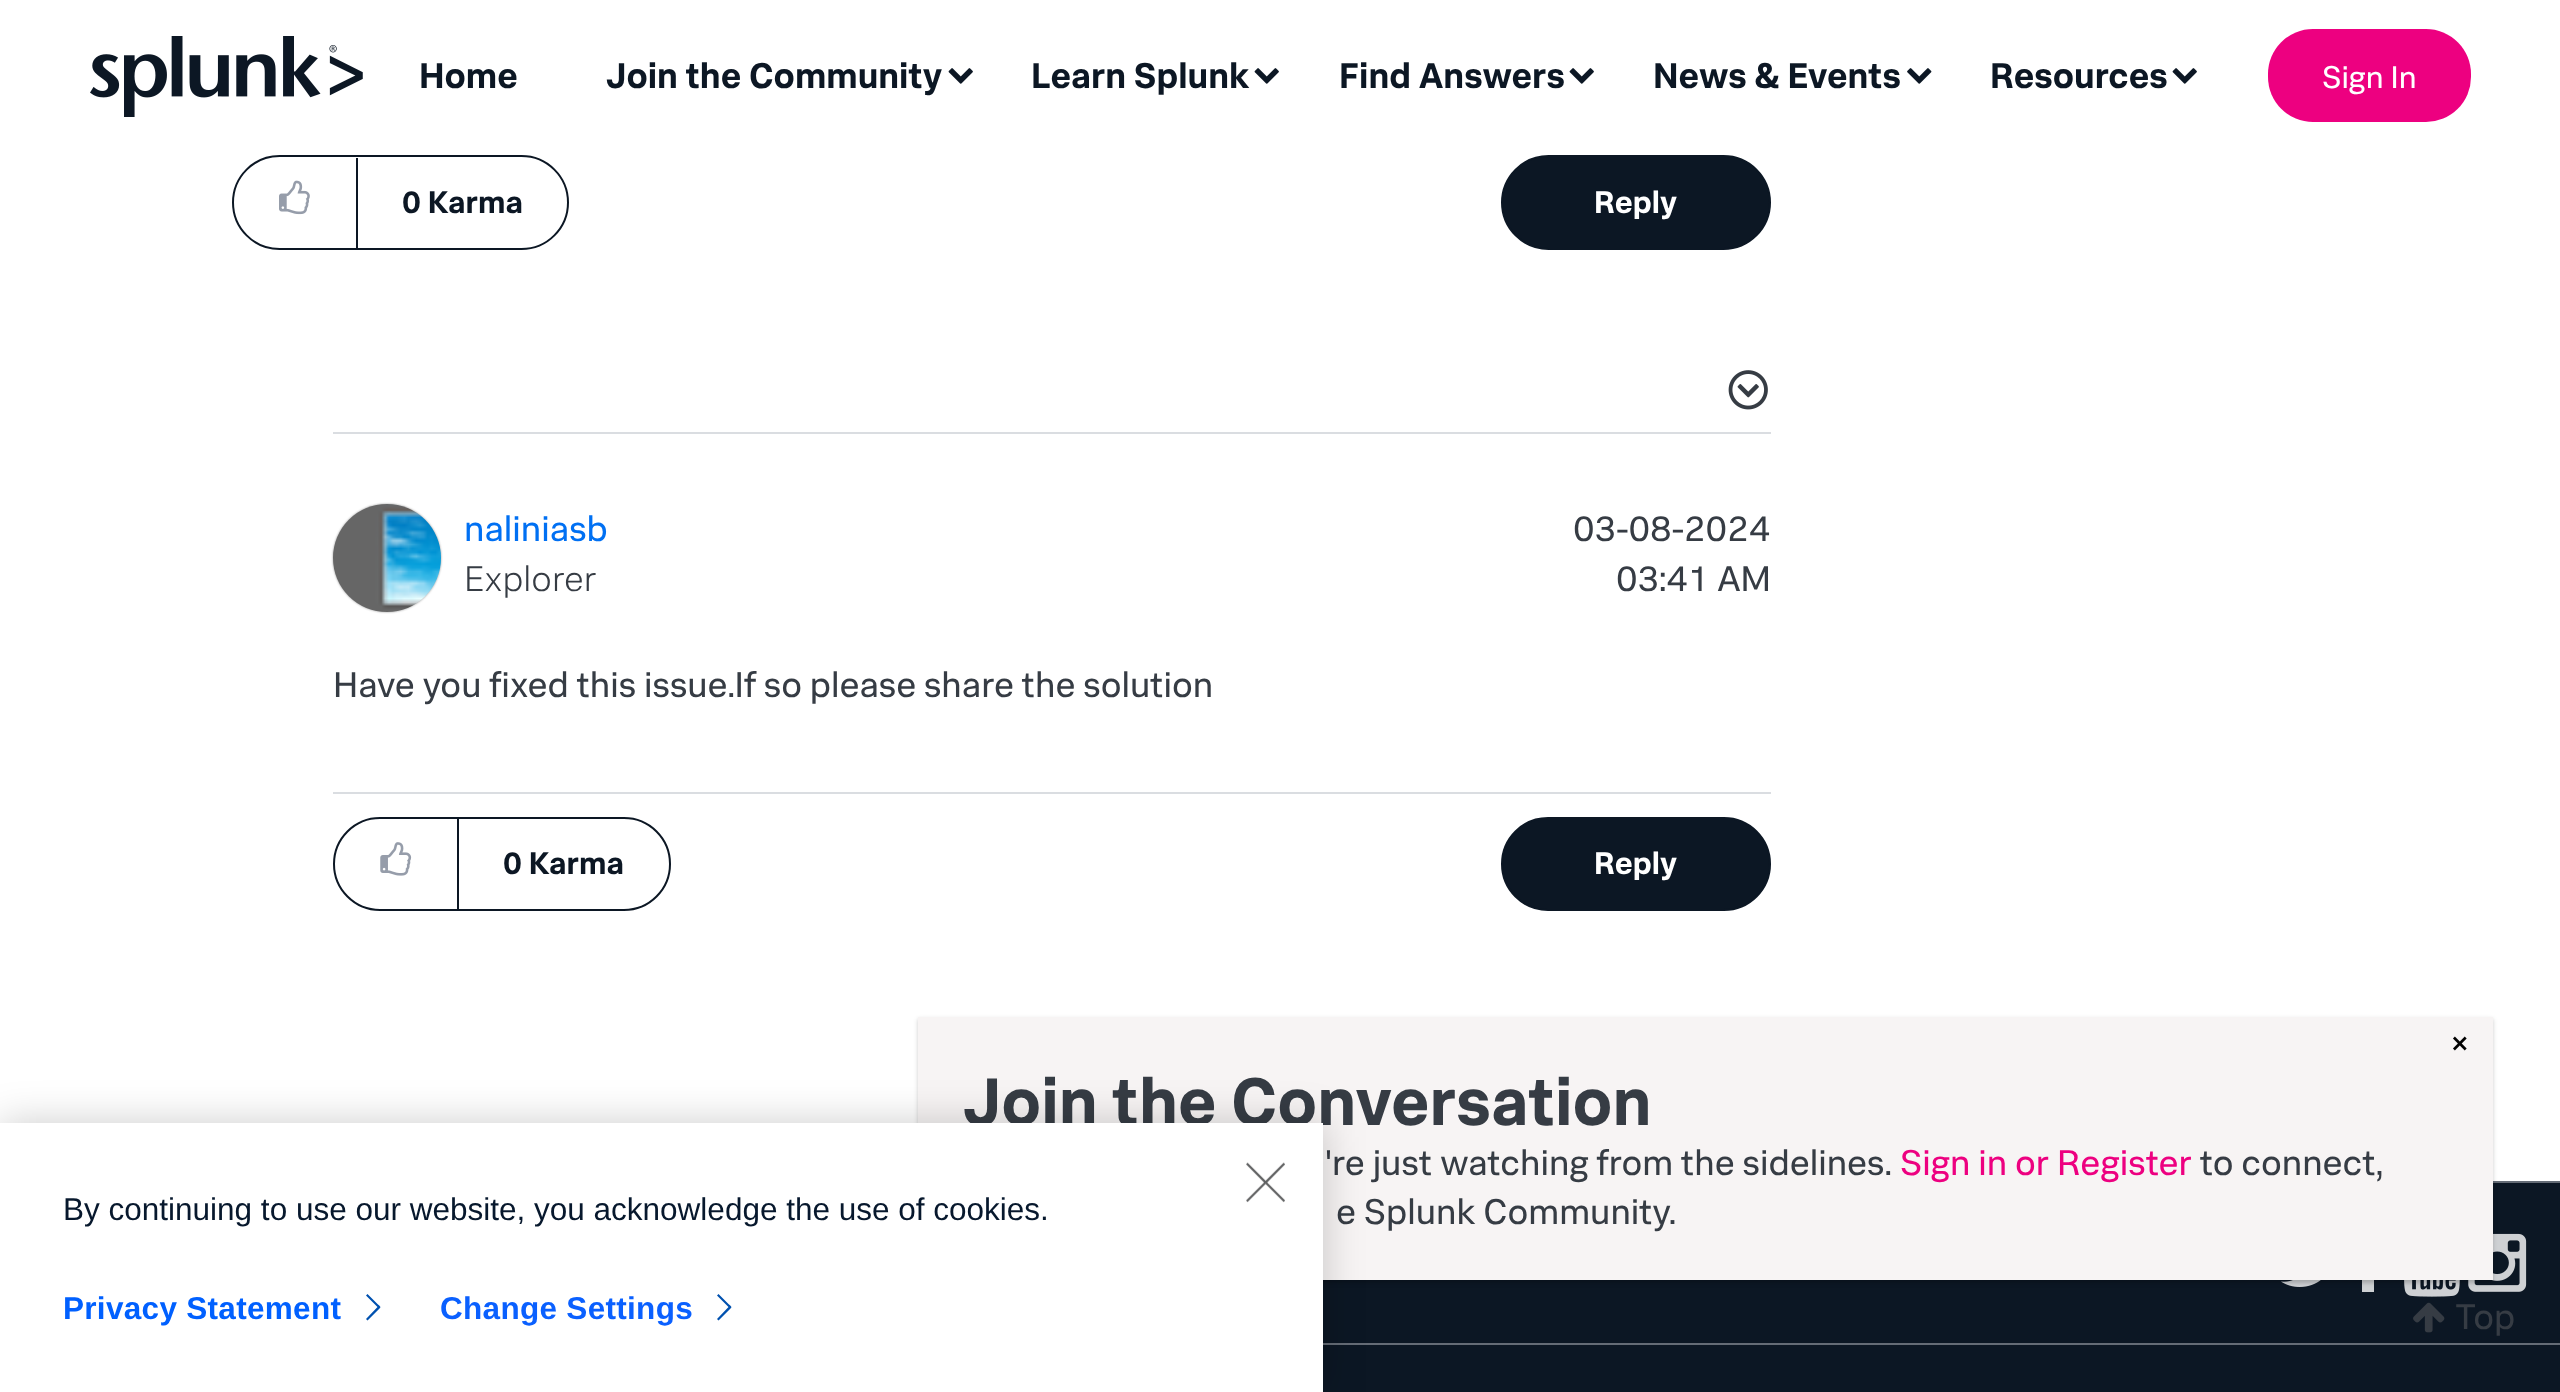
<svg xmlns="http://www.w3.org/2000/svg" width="2560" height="1392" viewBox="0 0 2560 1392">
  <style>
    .t1 { font: bold 36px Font; fill: #0c1724; }
    .t2 { font: 31.5px Font; fill: #fff; }
    .t3 { font: 36px Font; fill: #000; }
    .t4 { font: bold 67.5px Font; fill: #363c44; }
    .t5 { font: 36px Font; fill: #363c44; }
    .t6 { font: 36px Font; fill: #ed0080; }
    .t7 { font: bold 31.5px Font; fill: #0c1724; }
    .t8 { font: bold 31.5px Font; fill: #fff; }
    .t9 { font: 36px Font; fill: #0070f3; }
    .t10 { font: 300 36px Font; fill: #363c44; }
    .t11 { font: 31.5px Liberation Sans; fill: #07182d; }
    .t12 { font: bold 31.5px Liberation Sans; letter-spacing: 0.3px; fill: #0060ff; }
    .t13 { font: bold 31.5px Liberation Sans; letter-spacing: 0.3px; fill: #0a60ff; }
  </style>
  <rect width="100%" height="100%" fill="#fff"/>
  <image x="90" y="36" width="273" height="81" href="images/1.png"/>
  <text x="419" y="88" class="t1">Home</text>
  <text x="606" y="88" class="t1">Join the Community</text>
  <image x="948" y="68" width="25" height="16" href="images/2.png"/>
  <text x="1031" y="88" class="t1">Learn Splunk</text>
  <image x="1254" y="68" width="25" height="16" href="images/2.png"/>
  <text x="1339" y="88" class="t1">Find Answers</text>
  <image x="1569" y="68" width="25" height="16" href="images/2.png"/>
  <text x="1653" y="88" class="t1">News &amp; Events</text>
  <image x="1907" y="68" width="25" height="16" href="images/3.png"/>
  <text x="1990" y="88" class="t1">Resources</text>
  <image x="2172" y="68" width="25" height="16" href="images/2.png"/>
  <rect x="2268" y="29" width="203" height="93" rx="45" fill="#ed0080"/>
  <text x="2322" y="88" class="t2">Sign In</text>
  <rect x="1323" y="1183" width="1237" height="209" fill="#0c1724"/>
  <rect x="2493" y="1181" width="67" height="2" fill="#656c76"/>
  <image x="2281" y="1280" width="40" height="7" href="images/9.png"/>
  <path d="M2385 1230V1240C2372 1240 2374 1240 2374 1252H2385L2383 1263H2374V1292H2362V1263H2353V1252H2362V1241C2364 1229 2376 1228 2385 1230Z" fill="#ced1d3"/>
  <image x="2404" y="1280" width="56" height="17" href="images/10.png"/>
  <image x="2468" y="1233" width="59" height="59" href="images/11.png"/>
  <rect x="918" y="1019" width="1575" height="264" fill="#00000033" filter="blur(2px)"/>
  <rect x="918" y="1017" width="1575" height="263" fill="#f7f4f4"/>
  <text x="2449" y="1055" class="t3">×</text>
  <text x="963" y="1125" class="t4">Join the Conversation</text>
  <text x="1325" y="1175" class="t5">'re just watching from the sidelines.</text>
  <text x="1900" y="1175" class="t6">Sign in or Register</text>
  <text x="2200" y="1175" class="t5">to connect,</text>
  <text x="1336" y="1224" class="t5">e Splunk Community.</text>
  <rect x="233" y="156" width="335" height="93" rx="46.5" fill="none" stroke="#0c1724" stroke-width="2"/>
  <image x="279" y="180" width="31" height="35" href="images/4.png"/>
  <rect x="356" y="158" width="2" height="90" fill="#0c1724"/>
  <text x="402" y="213" class="t7">0 Karma</text>
  <rect x="1502" y="156" width="268" height="93" rx="46.5" fill="#0c1724" stroke="#0c1724" stroke-width="2"/>
  <text x="1594" y="213" class="t8">Reply</text>
  <rect x="333" y="432" width="1438" height="2" fill="#dadde1"/>
  <image x="1728" y="370" width="40" height="40" href="images/5.png"/>
  <rect x="333" y="504" width="108" height="108" rx="54" fill="#999" filter="blur(1px)"/>
  <image x="333" y="504" width="108" height="108" href="images/6.png"/>
  <text x="464" y="541" class="t9">naliniasb</text>
  <text x="464" y="591" class="t10">Explorer</text>
  <text x="1573" y="541" class="t5">03-08-2024</text>
  <text x="1616" y="591" class="t5">03:41 AM</text>
  <rect x="333" y="792" width="1438" height="2" fill="#dadde1"/>
  <text x="333" y="697" class="t5">Have you fixed this issue.If so please share the solution</text>
  <rect x="334" y="818" width="336" height="92" rx="46" fill="none" stroke="#0c1724" stroke-width="2"/>
  <image x="380" y="842" width="32" height="34" href="images/7.png"/>
  <rect x="457" y="819" width="2" height="90" fill="#0c1724"/>
  <text x="503" y="874" class="t7">0 Karma</text>
  <rect x="1502" y="818" width="268" height="92" rx="46" fill="#0c1724" stroke="#0c1724" stroke-width="2"/>
  <text x="1594" y="874" class="t8">Reply</text>
  <image x="2413" y="1302" width="32" height="31" href="images/8.png"/>
  <text x="2455" y="1329" class="t5">Top</text>
  <rect x="1323" y="1343" width="1237" height="2" fill="#656c76"/>
  <rect x="0" y="1123" width="1323" height="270" fill="#00000033" filter="blur(20px)"/>
  <rect x="0" y="1123" width="1323" height="269" fill="#fff"/>
  <image x="1246" y="1162" width="39" height="41" href="images/12.png"/>
  <text x="63" y="1220" class="t11">By continuing to use our website, you acknowledge the use of cookies.</text>
  <text x="63" y="1319" class="t12">Privacy Statement</text>
  <path d="M367.5 1320.5L366 1319L377.5 1307L366 1295.5L367.5 1294L378 1304.5C378.5 1305 381.5 1307 380 1308Z" fill="#0051af"/>
  <text x="440" y="1319" class="t13">Change Settings</text>
  <path d="M718.5 1320.5L717 1319L728.5 1307L717 1295.5L718.5 1294L729 1304.5C729.5 1305 732.5 1307 731 1308Z" fill="#0051af"/>
</svg>
